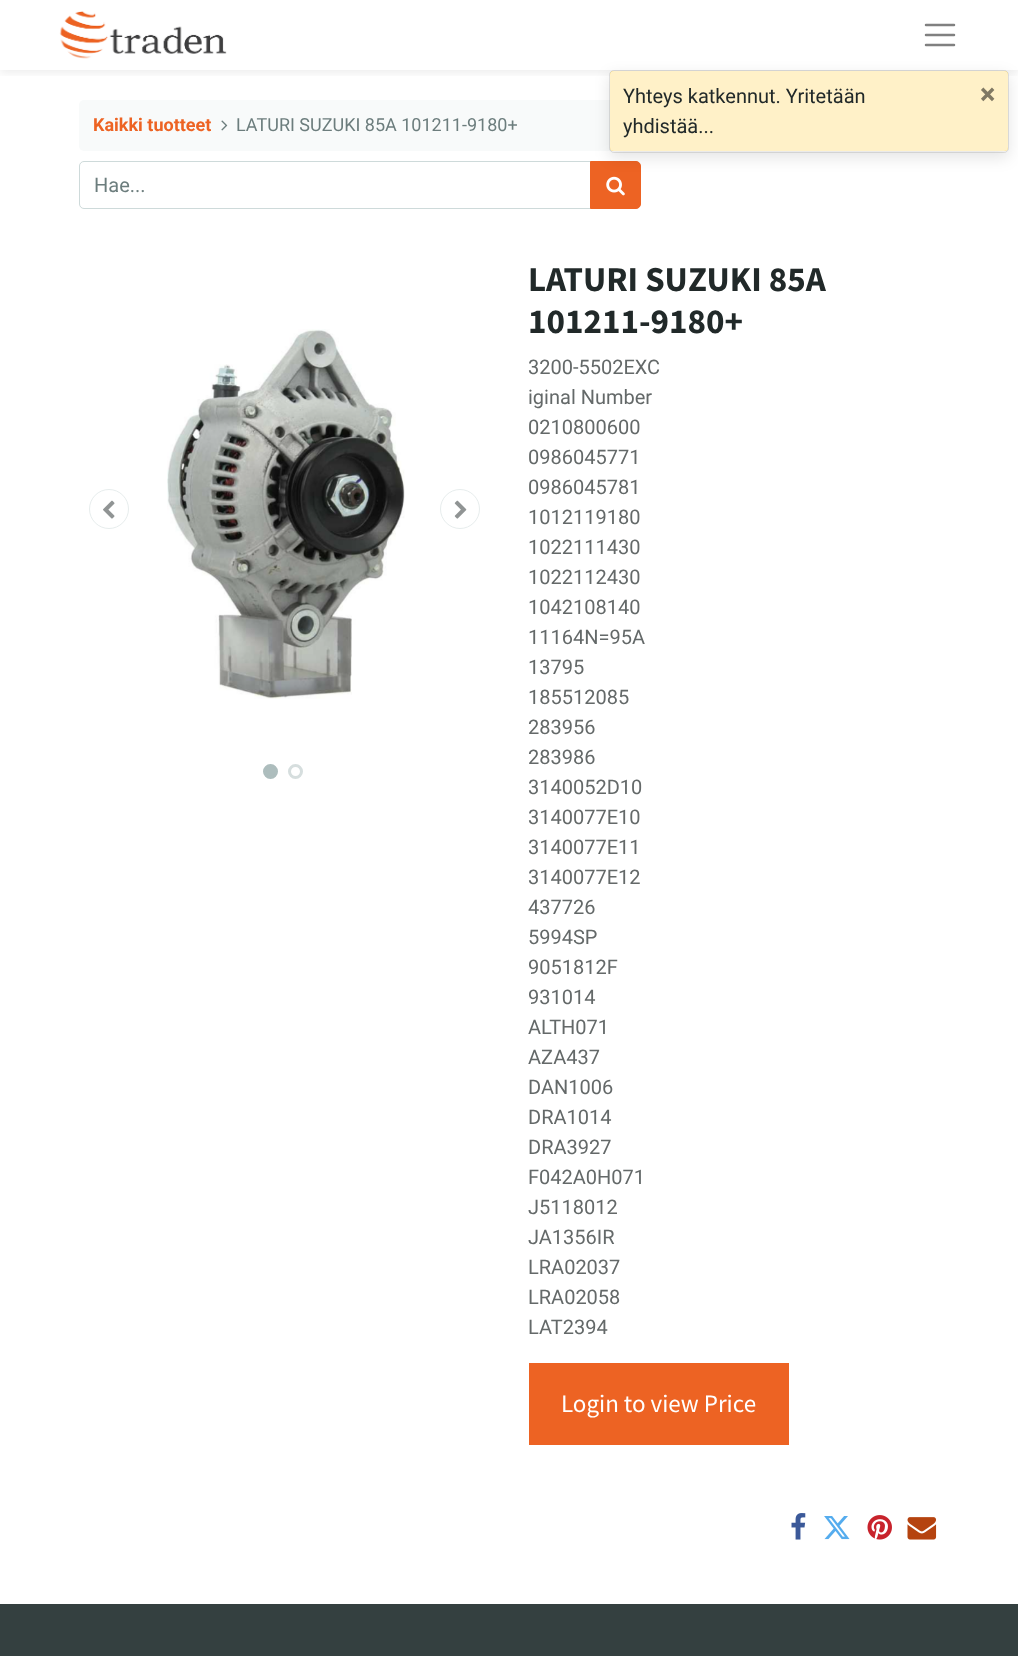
<svg xmlns="http://www.w3.org/2000/svg" width="1018" height="1656" viewBox="0 0 1018 1656">
  <style>
    .t1 { font: 20px Roboto; fill: #212929; }
    .t2 { font: bold 29px Roboto; fill: #807964; }
    .t3 { font: bold 18px Roboto; fill: #ed6323; }
    .t4 { font: 18px Roboto; fill: #6c7d7d; }
    .t5 { font: 20px Roboto; fill: #6c7d7d; }
    .t6 { font: bold 35px Source Sans Pro; fill: #212929; }
    .t7 { font: 20px Roboto; fill: #646969; }
    .t8 { font: 25px Source Sans Pro; fill: #fff; }
  </style>
  <defs>
    <clipPath id="clip1"><rect x="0" y="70" width="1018" height="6"/></clipPath>
  </defs>
  <rect width="100%" height="100%" fill="#fff"/>
  <rect x="79" y="100" width="862" height="51" rx="5" fill="#f8fafa"/>
  <path d="M84 161.5H590.5V208.5H84C81.5 208.5 79.5 206.5 79.5 204V166C79.5 163.5 81.5 161.5 84 161.5Z" fill="none" stroke="#cedada"/>
  <path d="M590.5 161.5H636C638.5 161.5 640.5 163.5 640.5 166V204C640.5 206.5 638.5 208.5 636 208.5H590.5Z" fill="#ed6323" stroke="#ed6323"/>
  <image x="606" y="176" width="19" height="20" href="images/3.png"/>
  <rect x="609" y="75" width="400" height="83" rx="5" fill="#0000001a" filter="blur(7.5px)"/>
  <g clip-path="url(#clip1)">
    <rect x="0" y="3" width="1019" height="70" fill="#00000012" filter="blur(5px)"/>
  </g>
  <rect x="610" y="71" width="398" height="80" rx="4" fill="#ffc107"/>
  <rect x="609.5" y="70.5" width="399" height="82" rx="4.5" fill="none" stroke="#0000001a"/>
  <rect x="610" y="71" width="398" height="80" rx="4" fill="#ffffffc7"/>
  <text x="623" y="103" class="t1">Yhteys katkennut. Yritetään</text>
  <text x="623" y="133" class="t1">yhdistää...</text>
  <text x="980" y="104" class="t2">×</text>
  <image x="59" y="11" width="168" height="48" href="images/1.png"/>
  <path d="M926 25H954M926 35H954M926 45H954" fill="none" stroke="#808080" stroke-width="2.5" stroke-linecap="round"/>
  <text x="93" y="131" class="t3">Kaikki tuotteet</text>
  <image x="221" y="120" width="7" height="11" href="images/2.png"/>
  <text x="236" y="131" class="t4">LATURI SUZUKI 85A 101211-9180+</text>
  <text x="94" y="192" class="t5">Hae...</text>
  <circle cx="109" cy="509" r="19.5" fill="none" stroke="#e7eded"/>
  <image x="103" y="500" width="12" height="19" href="images/4.png"/>
  <image x="167" y="329" width="238" height="370" href="images/5.png"/>
  <circle cx="460" cy="509" r="19.5" fill="none" stroke="#e7eded"/>
  <image x="454" y="500" width="13" height="19" href="images/6.png"/>
  <circle cx="270.5" cy="771.5" r="6" fill="#adbdbd" stroke="#adbdbd" stroke-width="3"/>
  <circle cx="295.5" cy="771.5" r="6" fill="none" stroke="#d6dede" stroke-width="3"/>
  <text x="528" y="291" class="t6">LATURI SUZUKI 85A</text>
  <text x="528" y="333" class="t6">101211-9180+</text>
  <text x="528" y="374" class="t7">3200-5502EXC</text>
  <text x="528" y="404" class="t7">iginal Number</text>
  <text x="528" y="434" class="t7">0210800600</text>
  <text x="528" y="464" class="t7">0986045771</text>
  <text x="528" y="494" class="t7">0986045781</text>
  <text x="528" y="524" class="t7">1012119180</text>
  <text x="528" y="554" class="t7">1022111430</text>
  <text x="528" y="584" class="t7">1022112430</text>
  <text x="528" y="614" class="t7">1042108140</text>
  <text x="528" y="644" class="t7">11164N=95A</text>
  <text x="528" y="674" class="t7">13795</text>
  <text x="528" y="704" class="t7">185512085</text>
  <text x="528" y="734" class="t7">283956</text>
  <text x="528" y="764" class="t7">283986</text>
  <text x="528" y="794" class="t7">3140052D10</text>
  <text x="528" y="824" class="t7">3140077E10</text>
  <text x="528" y="854" class="t7">3140077E11</text>
  <text x="528" y="884" class="t7">3140077E12</text>
  <text x="528" y="914" class="t7">437726</text>
  <text x="528" y="944" class="t7">5994SP</text>
  <text x="528" y="974" class="t7">9051812F</text>
  <text x="528" y="1004" class="t7">931014</text>
  <text x="528" y="1034" class="t7">ALTH071</text>
  <text x="528" y="1064" class="t7">AZA437</text>
  <text x="528" y="1094" class="t7">DAN1006</text>
  <text x="528" y="1124" class="t7">DRA1014</text>
  <text x="528" y="1154" class="t7">DRA3927</text>
  <text x="528" y="1184" class="t7">F042A0H071</text>
  <text x="528" y="1214" class="t7">J5118012</text>
  <text x="528" y="1244" class="t7">JA1356IR</text>
  <text x="528" y="1274" class="t7">LRA02037</text>
  <text x="528" y="1304" class="t7">LRA02058</text>
  <text x="528" y="1334" class="t7">LAT2394</text>
  <rect x="535.5" y="1369.5" width="247" height="69" fill="#ed6323" stroke="#ed6323" stroke-width="13"/>
  <text x="561" y="1412" class="t8">Login to view Price</text>
  <image x="791" y="1513" width="15" height="27" href="images/7.png"/>
  <image x="824" y="1516" width="26" height="24" href="images/8.png"/>
  <image x="867" y="1515" width="25" height="25" href="images/9.png"/>
  <image x="907" y="1517" width="30" height="23" href="images/10.png"/>
  <rect x="0" y="1604" width="1018" height="52" fill="#344040"/>
</svg>
